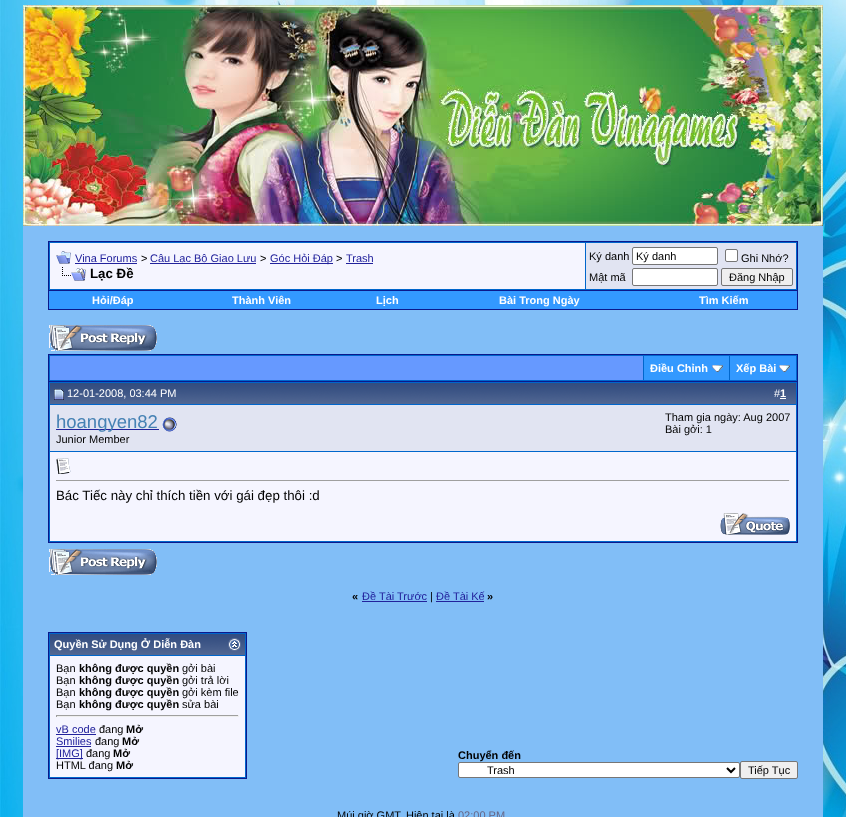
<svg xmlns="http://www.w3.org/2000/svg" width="846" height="817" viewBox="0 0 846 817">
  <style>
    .t1 { font: 11px Liberation Sans; fill: #22229c; }
    .t2 { font: 11px Liberation Sans; fill: #000; }
    .t3 { font: bold 13.3px Liberation Sans; fill: #000; }
    .t4 { font: bold 11px Liberation Sans; fill: #fff; }
    .t5 { font: 11px Liberation Sans; fill: #fff; }
    .t6 { font: 18.5px Liberation Sans; fill: #4682b4; }
    .t7 { font: 13.3px Liberation Sans; fill: #000; }
    .t8 { font: bold 11px Liberation Sans; fill: #000; }
    .t9 { font: 11px Liberation Sans; fill: #666686; }
  </style>
  <rect width="100%" height="100%" fill="#fff"/>
  <image x="0" y="0" width="846" height="817" href="images/1.png"/>
  <image x="23" y="5" width="800" height="221" href="images/2.png"/>
  <rect x="23" y="226" width="800" height="591" fill="#81bef7"/>
  <rect x="48.5" y="241.5" width="749" height="49" fill="#06c" stroke="#0b198c"/>
  <rect x="50" y="243" width="535" height="46" fill="#f5f5ff"/>
  <image x="56" y="251" width="15" height="13" href="images/3.png"/>
  <text x="75" y="262" class="t1">Vina Forums</text>
  <rect x="75" y="263" width="62" height="1" fill="#22229c"/>
  <text x="141" y="262" class="t2">&gt;</text>
  <rect x="150" y="263" width="106" height="1" fill="#22229c"/>
  <text x="150" y="262" class="t1">Câu Lạc Bộ Giao Lưu</text>
  <text x="260" y="262" class="t2">&gt;</text>
  <rect x="270" y="263" width="63" height="1" fill="#22229c"/>
  <text x="270" y="262" class="t1">Góc Hỏi Đáp</text>
  <text x="336" y="262" class="t2">&gt;</text>
  <text x="346" y="262" class="t1">Trash</text>
  <rect x="346" y="263" width="27" height="1" fill="#22229c"/>
  <image x="62" y="267" width="24" height="14" href="images/4.png"/>
  <text x="90" y="278" class="t3">Lạc Đề</text>
  <rect x="586" y="243" width="210" height="46" fill="#e1e4f2"/>
  <text x="589" y="260" class="t2">Ký danh</text>
  <rect x="632.5" y="247.5" width="85" height="17" rx="1.5" fill="#fff" stroke="#767676"/>
  <text x="636" y="260" class="t2">Ký danh</text>
  <rect x="725.5" y="249.5" width="12" height="12" rx="1.5" fill="#fff" stroke="#767676"/>
  <text x="741" y="262" class="t2">Ghi Nhớ?</text>
  <text x="589" y="281" class="t2">Mật mã</text>
  <rect x="632.5" y="268.5" width="85" height="17" rx="1.5" fill="#fff" stroke="#767676"/>
  <rect x="721.5" y="268.5" width="71" height="17" rx="1.5" fill="#efefef" stroke="#767676"/>
  <text x="729" y="281" class="t2">Ðăng Nhập</text>
  <rect x="797" y="291" width="1" height="19" fill="#0b198c"/>
  <rect x="48" y="309" width="750" height="1" fill="#0b198c"/>
  <rect x="48" y="291" width="1" height="19" fill="#0b198c"/>
  <rect x="49" y="291" width="748" height="18" fill="#39f"/>
  <text x="92" y="304" class="t4">Hỏi/Ðáp</text>
  <text x="232" y="304" class="t4">Thành Viên</text>
  <text x="376" y="304" class="t4">Lịch</text>
  <text x="499" y="304" class="t4">Bài Trong Ngày</text>
  <text x="699" y="304" class="t4">Tìm Kiếm</text>
  <image x="49" y="325" width="108" height="26" href="images/5.png"/>
  <rect x="49" y="355" width="748" height="26" fill="#06c"/>
  <rect x="48" y="354" width="750" height="1" fill="#0b198c"/>
  <rect x="797" y="354" width="1" height="27" fill="#0b198c"/>
  <rect x="48" y="354" width="1" height="27" fill="#0b198c"/>
  <rect x="50" y="356" width="593" height="24" fill="#69f"/>
  <rect x="644" y="356" width="85" height="24" fill="#39f"/>
  <text x="650" y="372" class="t4">Ðiều Chỉnh</text>
  <image x="712" y="365" width="11" height="7" href="images/6.png"/>
  <rect x="730" y="356" width="66" height="24" fill="#39f"/>
  <text x="736" y="372" class="t4">Xếp Bài</text>
  <image x="779" y="365" width="11" height="7" href="images/6.png"/>
  <rect x="48.5" y="381.5" width="749" height="161" fill="#06c" stroke="#0b198c"/>
  <image x="50" y="383" width="746" height="21" href="images/7.png"/>
  <image x="54" y="389" width="10" height="11" href="images/8.png"/>
  <text x="67" y="397" class="t5">12-01-2008, 03:44 PM</text>
  <text x="774" y="397" class="t5">#</text>
  <text x="780" y="397" class="t4">1</text>
  <rect x="780" y="398" width="6" height="1" fill="#fff"/>
  <rect x="50" y="405" width="746" height="46" fill="#e1e4f2"/>
  <rect x="56" y="429" width="103" height="1" fill="#22229c"/>
  <text x="56" y="428" class="t6">hoangyen82</text>
  <image x="162" y="417" width="15" height="15" href="images/9.png"/>
  <text x="56" y="443" class="t2">Junior Member</text>
  <text x="665" y="421" class="t2">Tham gia ngày: Aug 2007</text>
  <text x="665" y="433" class="t2">Bài gởi: 1</text>
  <rect x="50" y="452" width="746" height="89" fill="#f5f5ff"/>
  <image x="56" y="458" width="15" height="16" href="images/10.png"/>
  <rect x="56" y="480" width="734" height="1" fill="#9f9f9f"/>
  <rect x="789" y="480" width="1" height="1" fill="#eee"/>
  <text x="56" y="500" class="t7">Bác Tiếc này chỉ thích tiền với gái đẹp thôi :d</text>
  <image x="720" y="513" width="70" height="22" href="images/11.png"/>
  <image x="49" y="549" width="108" height="26" href="images/5.png"/>
  <text x="352" y="600" class="t8">«</text>
  <text x="362" y="600" class="t1">Ðề Tài Trước</text>
  <rect x="362" y="601" width="65" height="1" fill="#22229c"/>
  <text x="430" y="600" class="t2">|</text>
  <text x="436" y="600" class="t1">Ðề Tài Kế</text>
  <rect x="436" y="601" width="48" height="1" fill="#22229c"/>
  <text x="487" y="600" class="t8">»</text>
  <rect x="48.5" y="632.5" width="198" height="146" fill="#06c" stroke="#0b198c"/>
  <image x="50" y="634" width="195" height="21" href="images/12.png"/>
  <text x="54" y="648" class="t4">Quyền Sử Dụng Ở Diễn Ðàn</text>
  <image x="228" y="638" width="13" height="13" href="images/13.png"/>
  <rect x="50" y="656" width="195" height="121" fill="#f5f5ff"/>
  <text x="56" y="672" class="t2">Bạn</text>
  <text x="79" y="672" class="t8">không được quyền</text>
  <text x="182" y="672" class="t2">gởi bài</text>
  <text x="56" y="684" class="t2">Bạn</text>
  <text x="79" y="684" class="t8">không được quyền</text>
  <text x="182" y="684" class="t2">gởi trả lời</text>
  <text x="56" y="696" class="t2">Bạn</text>
  <text x="79" y="696" class="t8">không được quyền</text>
  <text x="182" y="696" class="t2">gởi kèm file</text>
  <text x="56" y="708" class="t2">Bạn</text>
  <text x="79" y="708" class="t8">không được quyền</text>
  <text x="182" y="708" class="t2">sửa bài</text>
  <rect x="56" y="715" width="183" height="1" fill="#9f9f9f"/>
  <rect x="238" y="715" width="1" height="2" fill="#eee"/>
  <rect x="56" y="716" width="183" height="1" fill="#eee"/>
  <rect x="56" y="715" width="1" height="2" fill="#9f9f9f"/>
  <text x="56" y="733" class="t1">vB code</text>
  <rect x="56" y="734" width="40" height="1" fill="#22229c"/>
  <text x="99" y="733" class="t2">đang</text>
  <text x="126" y="733" class="t8">Mở</text>
  <text x="56" y="745" class="t1">Smilies</text>
  <rect x="56" y="746" width="35" height="1" fill="#22229c"/>
  <text x="95" y="745" class="t2">đang</text>
  <text x="122" y="745" class="t8">Mở</text>
  <rect x="56" y="758" width="27" height="1" fill="#22229c"/>
  <text x="56" y="757" class="t1">[IMG]</text>
  <text x="86" y="757" class="t2">đang</text>
  <text x="113" y="757" class="t8">Mở</text>
  <text x="56" y="769" class="t2">HTML đang</text>
  <text x="116" y="769" class="t8">Mở</text>
  <text x="458" y="759" class="t8">Chuyển đến</text>
  <rect x="458.5" y="762.5" width="281" height="15" rx="1.5" fill="#fff" stroke="#767676"/>
  <path d="M727 768L731 772L735 768" fill="none" stroke="#000" stroke-width="2"/>
  <text x="487" y="774" class="t2">Trash</text>
  <rect x="740.5" y="761.5" width="57" height="17" rx="1.5" fill="#efefef" stroke="#767676"/>
  <text x="748" y="774" class="t2">Tiếp Tục</text>
  <text x="337" y="819" class="t2">Múi giờ GMT. Hiện tại là</text>
  <text x="458" y="819" class="t9">02:00 PM</text>
</svg>
